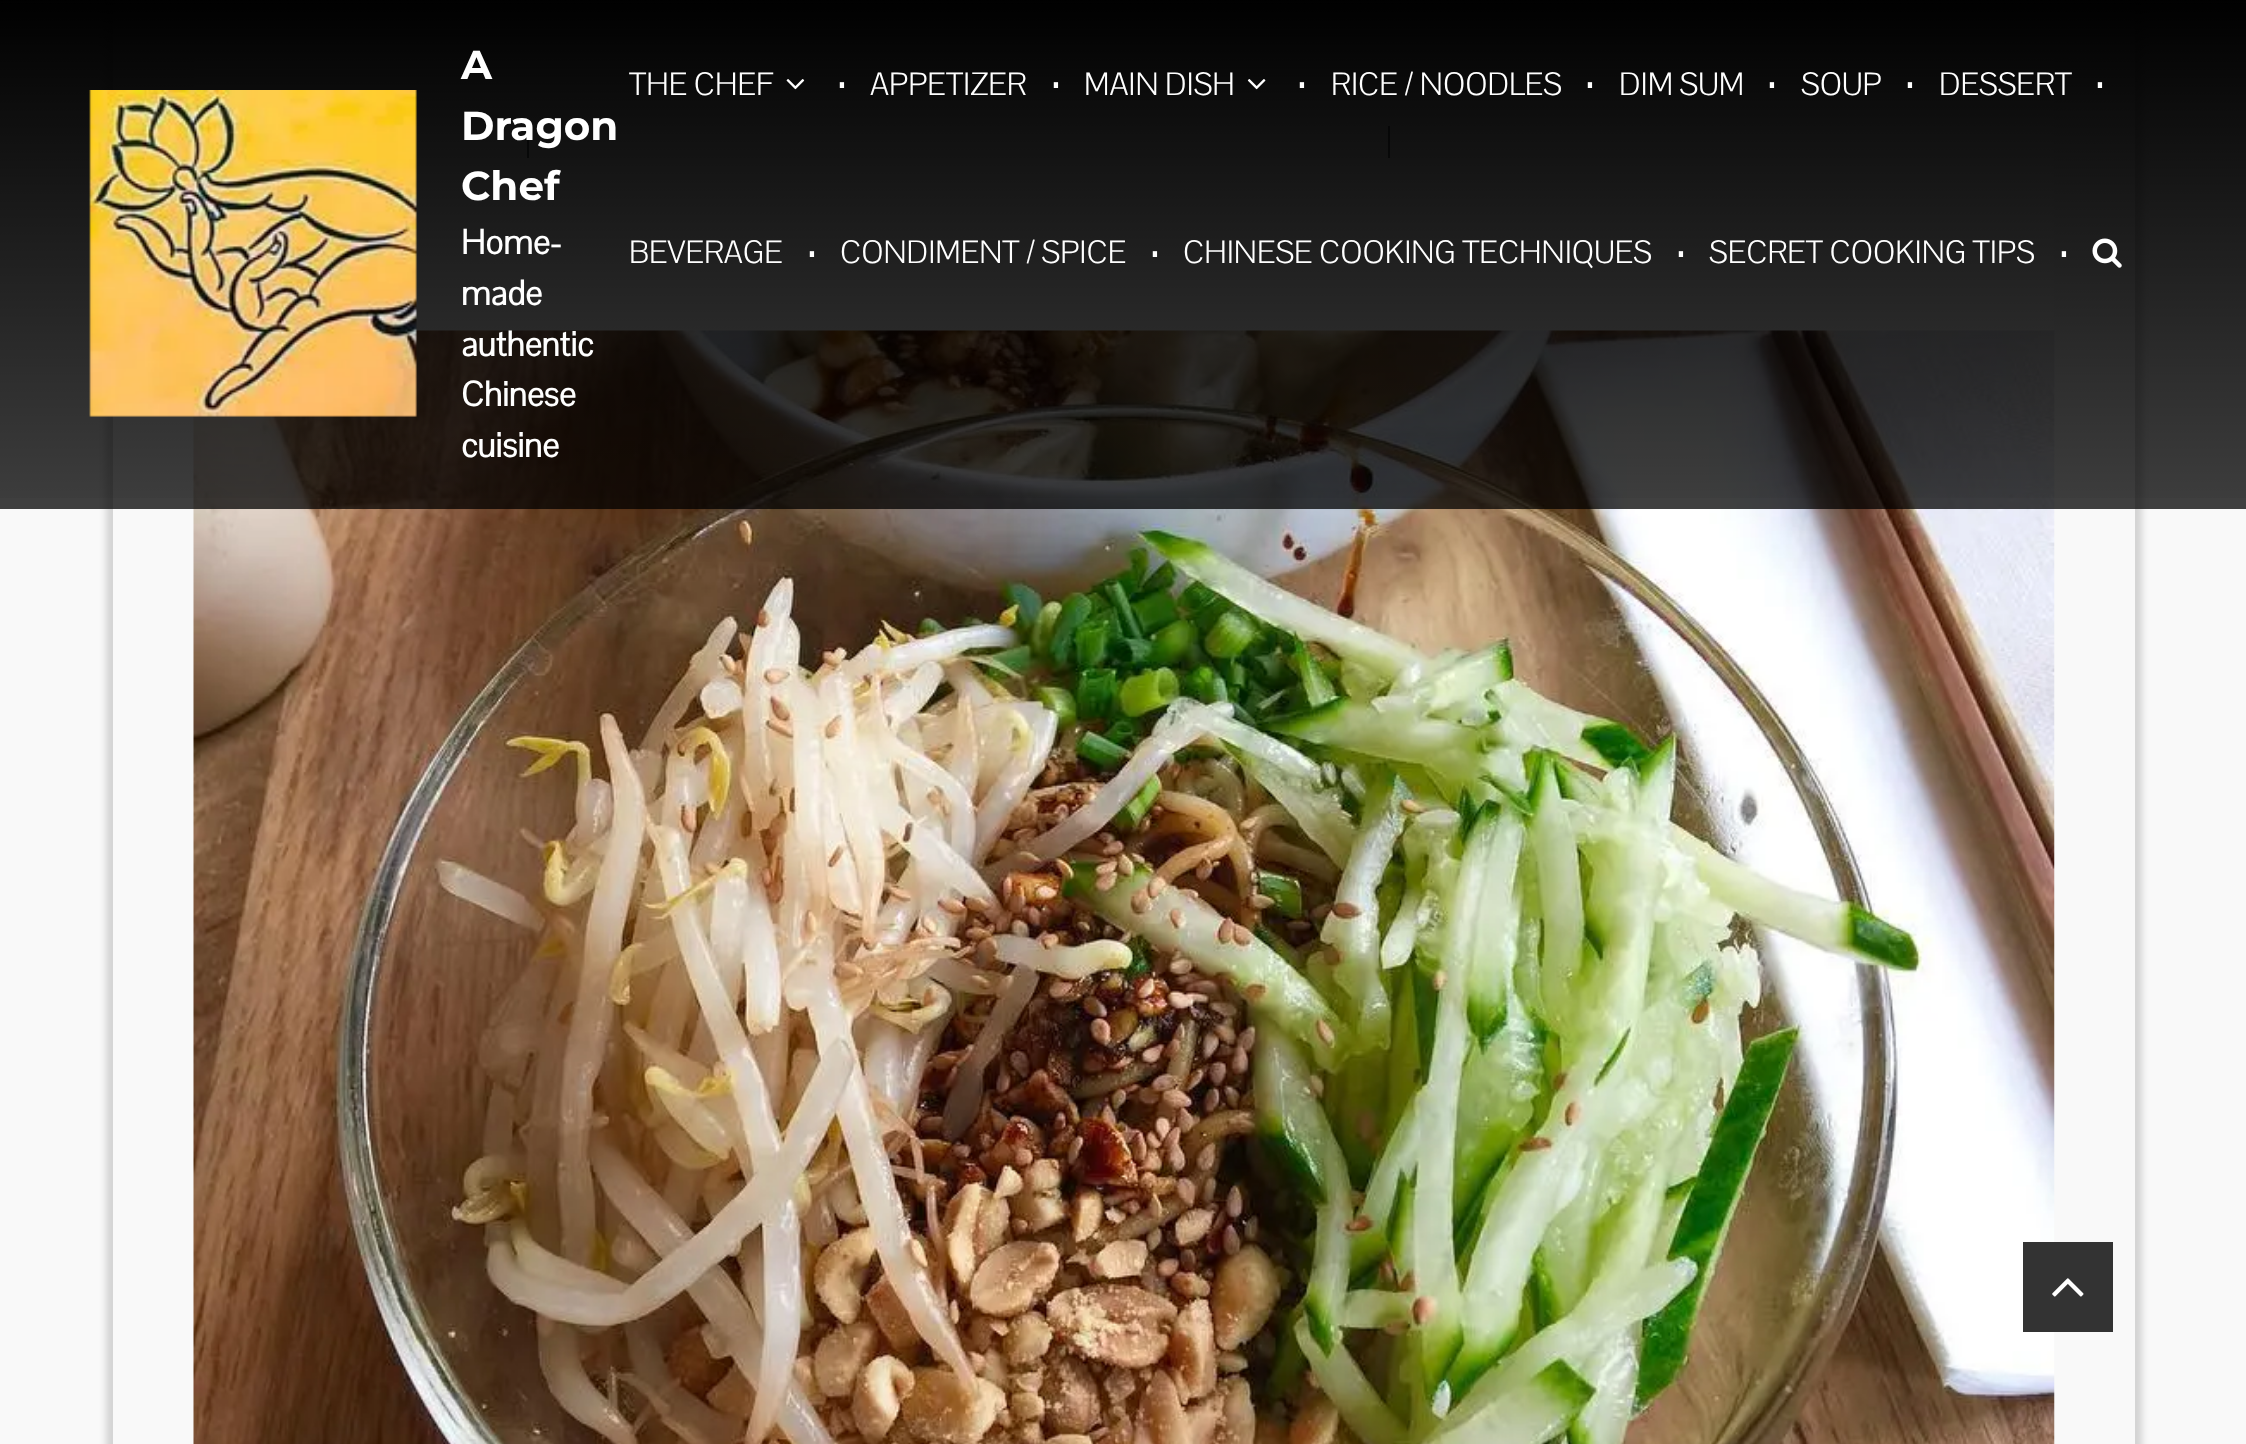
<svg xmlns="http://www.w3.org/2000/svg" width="2246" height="1444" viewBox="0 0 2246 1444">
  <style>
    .t1 { font: 100 40.5px Montserrat; fill: #fff; }
    .t2 { font: bold 34px Pontano Sans; fill: #fff; }
    .t3 { font: 300 31.5px Pontano Sans; fill: #fff; }
    .t4 { font: 300 56px Pontano Sans; fill: #fff; }
  </style>
  <defs>
    <clipPath id="clip1"><path d="M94 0H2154V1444H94ZM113-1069H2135V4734H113Z" clip-rule="evenodd"/></clipPath>
    <linearGradient id="g1" gradientUnits="userSpaceOnUse" x1="1124" y1="0" x2="1124" y2="509"><stop offset="0" stop-color="#000"/><stop offset="1" stop-color="#000" stop-opacity="0.02"/></linearGradient>
  </defs>
  <rect width="100%" height="100%" fill="#f9f9f9"/>
  <g clip-path="url(#clip1)">
    <rect x="106" y="-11" width="2036" height="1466" fill="#00000026" filter="blur(3.5px)"/>
  </g>
  <rect x="194" y="56" width="1860" height="275" fill="#fff"/>
  <rect x="527" y="126" width="2" height="32" fill="#60686e"/>
  <rect x="1388" y="126" width="2" height="32" fill="#60686e"/>
  <image x="193" y="330" width="1862" height="1114" href="images/5.png"/>
  <rect x="0" y="3" width="2246" height="506" fill="#000000bf"/>
  <rect x="0" y="0" width="2246" height="498" fill="url(#g1)"/>
  <image x="89" y="90" width="328" height="327" href="images/1.png"/>
  <text x="461" y="79" class="t1">A</text>
  <text x="461" y="140" class="t1">Dragon</text>
  <text x="461" y="200" class="t1">Chef</text>
  <text x="461" y="254" class="t2">Home-</text>
  <text x="461" y="305" class="t2">made</text>
  <text x="461" y="356" class="t2">authentic</text>
  <text x="461" y="406" class="t2">Chinese</text>
  <text x="461" y="457" class="t2">cuisine</text>
  <text x="629" y="95" class="t3">THE CHEF</text>
  <image x="786" y="79" width="19" height="11" href="images/2.png"/>
  <text x="836" y="88" class="t4">.</text>
  <text x="870" y="95" class="t3">APPETIZER</text>
  <text x="1050" y="88" class="t4">.</text>
  <text x="1084" y="95" class="t3">MAIN DISH</text>
  <image x="1247" y="79" width="19" height="11" href="images/3.png"/>
  <text x="1296" y="88" class="t4">.</text>
  <text x="1331" y="95" class="t3">RICE / NOODLES</text>
  <text x="1584" y="88" class="t4">.</text>
  <text x="1619" y="95" class="t3">DIM SUM</text>
  <text x="1766" y="88" class="t4">.</text>
  <text x="1801" y="95" class="t3">SOUP</text>
  <text x="1904" y="88" class="t4">.</text>
  <text x="1939" y="95" class="t3">DESSERT</text>
  <text x="2094" y="88" class="t4">.</text>
  <text x="629" y="263" class="t3">BEVERAGE</text>
  <text x="806" y="257" class="t4">.</text>
  <text x="840" y="263" class="t3">CONDIMENT / SPICE</text>
  <text x="1149" y="257" class="t4">.</text>
  <text x="1183" y="263" class="t3">CHINESE COOKING TECHNIQUES</text>
  <text x="1675" y="257" class="t4">.</text>
  <text x="1709" y="263" class="t3">SECRET COOKING TIPS</text>
  <text x="2058" y="257" class="t4">.</text>
  <image x="2092" y="238" width="30" height="30" href="images/4.png"/>
  <rect x="2023" y="1242" width="90" height="90" fill="#333"/>
  <image x="2052" y="1278" width="32" height="19" href="images/6.png"/>
</svg>
